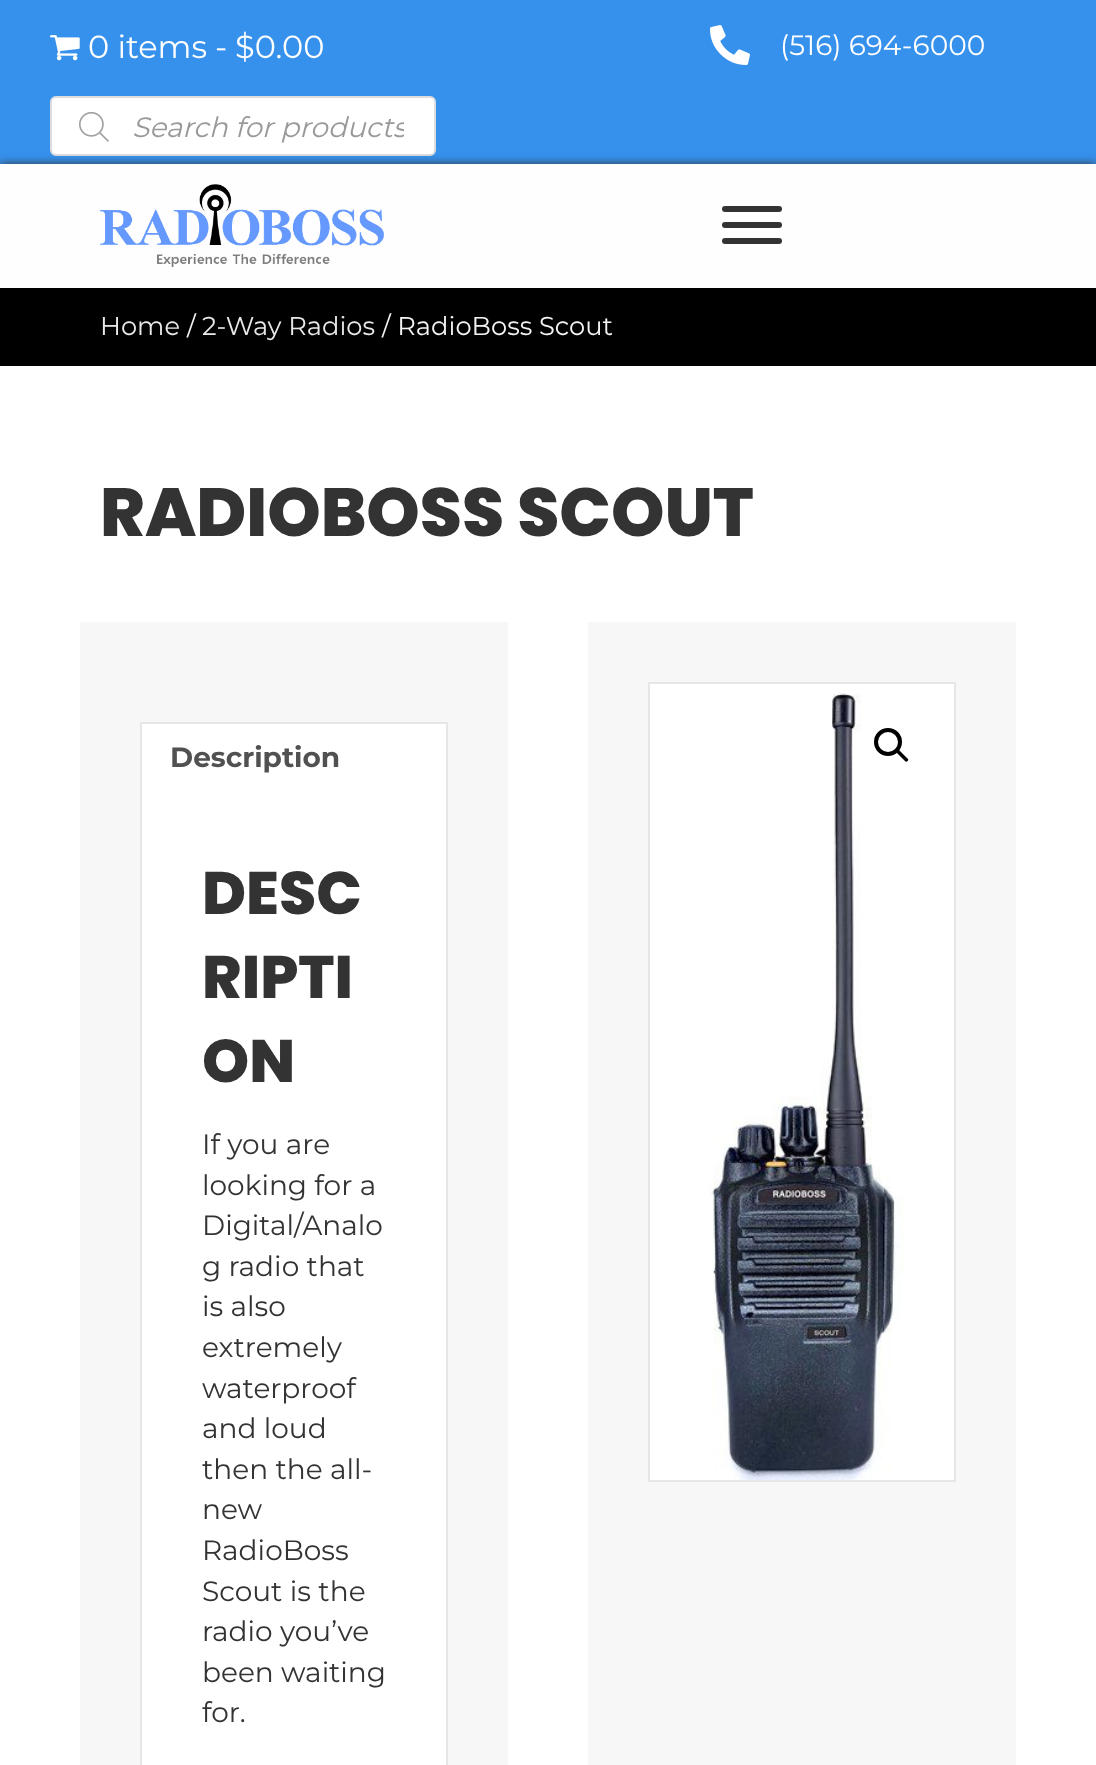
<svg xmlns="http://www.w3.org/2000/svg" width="1096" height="1765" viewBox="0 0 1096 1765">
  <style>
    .t1 { font: 32px Montserrat; fill: #fff; }
    .t2 { font: 28px Montserrat; fill: #fff; }
    .t3 { font: italic 28px Montserrat; fill: #999; }
    .t4 { font: 25.75px Montserrat; fill: #e8e8e8; }
    .t5 { font: 25.75px Montserrat; fill: #f3f3f3; }
    .t6 { font: 800 68px Poppins; fill: #333; }
    .t7 { font: bold 28px Montserrat; fill: #515151; }
    .t8 { font: 800 60px Poppins; fill: #333; }
    .t9 { font: 28px Montserrat; fill: #333; }
  </style>
  <defs>
    <clipPath id="clip1"><rect x="132" y="108" width="272" height="36"/></clipPath>
  </defs>
  <rect width="100%" height="100%" fill="#fff"/>
  <rect x="0" y="0" width="1096" height="164" fill="#3691ed"/>
  <image x="50" y="35" width="30" height="26" href="images/1.png"/>
  <text x="88" y="58" class="t1">0 items</text>
  <text x="215" y="58" class="t1">-</text>
  <text x="235" y="58" class="t1">$0.00</text>
  <image x="710" y="25" width="40" height="40" href="images/2.png"/>
  <text x="780" y="55" class="t2">(516) 694-6000</text>
  <rect x="51" y="97" width="384" height="58" rx="5" fill="#fff" stroke="#ddd" stroke-width="2"/>
  <image x="79" y="112" width="30" height="30" href="images/3.png"/>
  <g clip-path="url(#clip1)">
    <text x="132" y="137" class="t3">Search for products</text>
  </g>
  <rect x="0" y="164" width="1096" height="124" fill="#333" filter="blur(5px)"/>
  <rect x="0" y="164" width="1096" height="124" fill="#fefefe"/>
  <image x="100" y="184" width="285" height="83" href="images/4.png"/>
  <rect x="722" y="222" width="60" height="6" rx="3" fill="#333"/>
  <rect x="722" y="206" width="60" height="6" rx="3" fill="#333"/>
  <rect x="722" y="238" width="60" height="6" rx="3" fill="#333"/>
  <rect x="0" y="288" width="1096" height="78" fill="#000"/>
  <text x="100" y="335" class="t4">Home</text>
  <text x="187" y="335" class="t5">/</text>
  <text x="202" y="335" class="t4">2-Way Radios</text>
  <text x="382" y="335" class="t5">/ RadioBoss Scout</text>
  <text x="100" y="536" class="t6">RADIOBOSS SCOUT</text>
  <rect x="80" y="622" width="428" height="1143" fill="#f7f7f7"/>
  <rect x="140" y="722" width="308" height="2" fill="#e6e6e6"/>
  <rect x="446" y="722" width="2" height="70" fill="#e6e6e6"/>
  <rect x="140" y="722" width="2" height="70" fill="#e6e6e6"/>
  <rect x="142" y="724" width="304" height="1041" fill="#fff"/>
  <text x="170" y="767" class="t7">Description</text>
  <rect x="446" y="792" width="2" height="973" fill="#e6e6e6"/>
  <rect x="140" y="792" width="2" height="973" fill="#e6e6e6"/>
  <text x="202" y="914" class="t8">DESC</text>
  <text x="202" y="998" class="t8">RIPTI</text>
  <text x="202" y="1082" class="t8">ON</text>
  <text x="202" y="1154" class="t9">If you are</text>
  <text x="202" y="1195" class="t9">looking for a</text>
  <text x="202" y="1235" class="t9">Digital/Analo</text>
  <text x="202" y="1276" class="t9">g radio that</text>
  <text x="202" y="1316" class="t9">is also</text>
  <text x="202" y="1357" class="t9">extremely</text>
  <text x="202" y="1398" class="t9">waterproof</text>
  <text x="202" y="1438" class="t9">and loud</text>
  <text x="202" y="1479" class="t9">then the all-</text>
  <text x="202" y="1519" class="t9">new</text>
  <text x="202" y="1560" class="t9">RadioBoss</text>
  <text x="202" y="1601" class="t9">Scout is the</text>
  <text x="202" y="1641" class="t9">radio you’ve</text>
  <text x="202" y="1682" class="t9">been waiting</text>
  <text x="202" y="1722" class="t9">for.</text>
  <rect x="588" y="622" width="428" height="1143" fill="#f7f7f7"/>
  <rect x="649" y="683" width="306" height="798" fill="#fff" stroke="#e6e6e6" stroke-width="2"/>
  <image x="709" y="693" width="195" height="787" href="images/5.png"/>
  <circle cx="892" cy="746" r="36" fill="#fff"/>
  <circle cx="888" cy="742" r="12" fill="none" stroke="#000" stroke-width="4"/>
  <path d="M896.5 750C897 749 898.5 749 899 750L907.5 758.5C908.5 759 908.5 760.5 907.5 761C907 762 905.5 762 905 761L896.5 752.5C895.5 752 895.5 750.5 896.5 750Z" fill="#000"/>
</svg>
